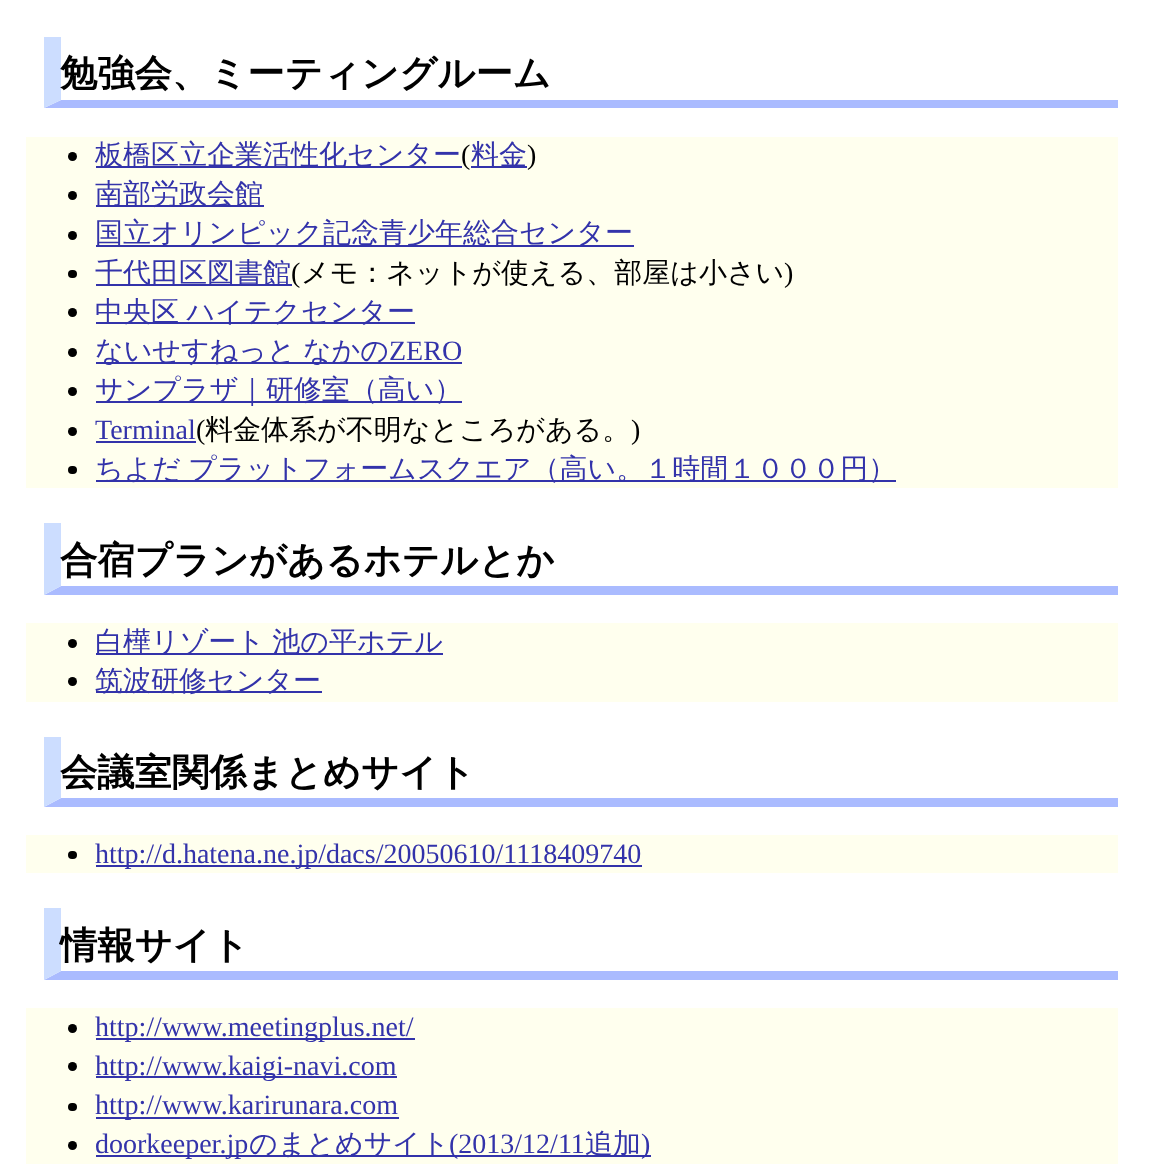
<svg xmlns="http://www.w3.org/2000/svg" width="1167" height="1165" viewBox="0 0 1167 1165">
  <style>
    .t1 { font: bold 37.3px WenQuanYi Zen Hei; fill: #000; }
    .t2 { font: 500 28px WenQuanYi Zen Hei; fill: #33a; }
    .t3 { font: 28px Liberation Serif; fill: #000; }
    .t4 { font: 500 28px WenQuanYi Zen Hei; fill: #000; }
    .t5 { font: 28px Liberation Serif; fill: #33a; }
  </style>
  <rect width="100%" height="100%" fill="#fff"/>
  <path d="M1118 108H44L61 100H1118Z" fill="#abf"/>
  <path d="M44 108V37H61V100Z" fill="#cdf"/>
  <text x="60" y="86" class="t1">勉強会、ミーティングルーム</text>
  <rect x="26" y="137" width="1092" height="351" fill="#ffe"/>
  <circle cx="72.5" cy="156.5" r="4.5" fill="#000"/>
  <rect x="96" y="166" width="366" height="2" fill="#33a"/>
  <text x="95" y="164" class="t2">板橋区立企業活性化センター</text>
  <text x="461" y="164" class="t3">(</text>
  <rect x="471" y="166" width="56" height="2" fill="#33a"/>
  <text x="471" y="164" class="t2">料金</text>
  <text x="527" y="164" class="t3">)</text>
  <circle cx="72.5" cy="195.5" r="4.5" fill="#000"/>
  <rect x="96" y="205" width="168" height="2" fill="#33a"/>
  <text x="95" y="203" class="t2">南部労政会館</text>
  <circle cx="72.5" cy="235.5" r="4.5" fill="#000"/>
  <rect x="96" y="245" width="538" height="2" fill="#33a"/>
  <text x="95" y="242" class="t2">国立オリンピック記念青少年総合センター</text>
  <rect x="68" y="270" width="9" height="8" rx="4" fill="#000"/>
  <rect x="96" y="284" width="196" height="2" fill="#33a"/>
  <text x="95" y="282" class="t2">千代田区図書館</text>
  <text x="291" y="282" class="t3">(</text>
  <text x="301" y="282" class="t4">メモ：ネットが使える、部屋は小さい</text>
  <text x="784" y="282" class="t3">)</text>
  <circle cx="72.5" cy="312.5" r="4.5" fill="#000"/>
  <rect x="96" y="322" width="319" height="2" fill="#33a"/>
  <text x="95" y="321" word-spacing="-1" class="t2">中央区 ハイテクセンター</text>
  <circle cx="72.5" cy="352.5" r="4.5" fill="#000"/>
  <rect x="96" y="362" width="366" height="2" fill="#33a"/>
  <text x="95" y="360" word-spacing="-1" class="t2">ないせすねっと なかの</text>
  <text x="389" y="360" class="t5">ZERO</text>
  <circle cx="72.5" cy="391.5" r="4.5" fill="#000"/>
  <rect x="96" y="401" width="366" height="2" fill="#33a"/>
  <text x="95" y="399" class="t2">サンプラザ｜研修室（高い）</text>
  <circle cx="72.5" cy="431.5" r="4.5" fill="#000"/>
  <text x="95" y="439" class="t5">Terminal</text>
  <rect x="96" y="441" width="100" height="2" fill="#33a"/>
  <text x="196" y="439" class="t3">(</text>
  <text x="205" y="439" class="t4">料金体系が不明なところがある。</text>
  <text x="631" y="439" class="t3">)</text>
  <rect x="68" y="466" width="9" height="8" rx="4" fill="#000"/>
  <rect x="96" y="480" width="800" height="2" fill="#33a"/>
  <text x="95" y="478" word-spacing="-1" class="t2">ちよだ プラットフォームスクエア（高い。１時間１０００円）</text>
  <path d="M1118 595H44L61 586H1118Z" fill="#abf"/>
  <path d="M44 595V523H61V586Z" fill="#cdf"/>
  <text x="60" y="573" class="t1">合宿プランがあるホテルとか</text>
  <rect x="26" y="623" width="1092" height="79" fill="#ffe"/>
  <circle cx="72.5" cy="643.5" r="4.5" fill="#000"/>
  <rect x="96" y="653" width="347" height="2" fill="#33a"/>
  <text x="95" y="651" word-spacing="-1" class="t2">白樺リゾート 池の平ホテル</text>
  <circle cx="72.5" cy="681.5" r="4.5" fill="#000"/>
  <rect x="96" y="691" width="226" height="2" fill="#33a"/>
  <text x="95" y="690" class="t2">筑波研修センター</text>
  <path d="M1118 807H44L61 798H1118Z" fill="#abf"/>
  <path d="M44 807V737H61V798Z" fill="#cdf"/>
  <text x="60" y="785" class="t1">会議室関係まとめサイト</text>
  <rect x="26" y="835" width="1092" height="38" fill="#ffe"/>
  <rect x="68" y="851" width="9" height="8" rx="4" fill="#000"/>
  <rect x="96" y="865" width="546" height="2" fill="#33a"/>
  <text x="95" y="863" class="t5">http://d.hatena.ne.jp/dacs/20050610/1118409740</text>
  <path d="M1118 980H44L61 971H1118Z" fill="#abf"/>
  <path d="M44 980V908H61V971Z" fill="#cdf"/>
  <text x="60" y="958" class="t1">情報サイト</text>
  <rect x="26" y="1008" width="1092" height="156" fill="#ffe"/>
  <circle cx="72.5" cy="1028.5" r="4.5" fill="#000"/>
  <rect x="96" y="1038" width="319" height="2" fill="#33a"/>
  <text x="95" y="1036" class="t5">http://www.meetingplus.net/</text>
  <circle cx="72.5" cy="1066.5" r="4.5" fill="#000"/>
  <rect x="96" y="1076" width="301" height="2" fill="#33a"/>
  <text x="95" y="1075" class="t5">http://www.kaigi-navi.com</text>
  <rect x="68" y="1103" width="9" height="8" rx="4" fill="#000"/>
  <rect x="96" y="1117" width="303" height="2" fill="#33a"/>
  <text x="95" y="1114" class="t5">http://www.karirunara.com</text>
  <circle cx="72.5" cy="1145.5" r="4.5" fill="#000"/>
  <rect x="96" y="1155" width="555" height="2" fill="#33a"/>
  <text x="95" y="1153" class="t5">doorkeeper.jp</text>
  <text x="249" y="1153" class="t2">のまとめサイト</text>
  <text x="449" y="1153" class="t5">(2013/12/11</text>
  <text x="585" y="1153" class="t2">追加</text>
  <text x="641" y="1153" class="t5">)</text>
</svg>
